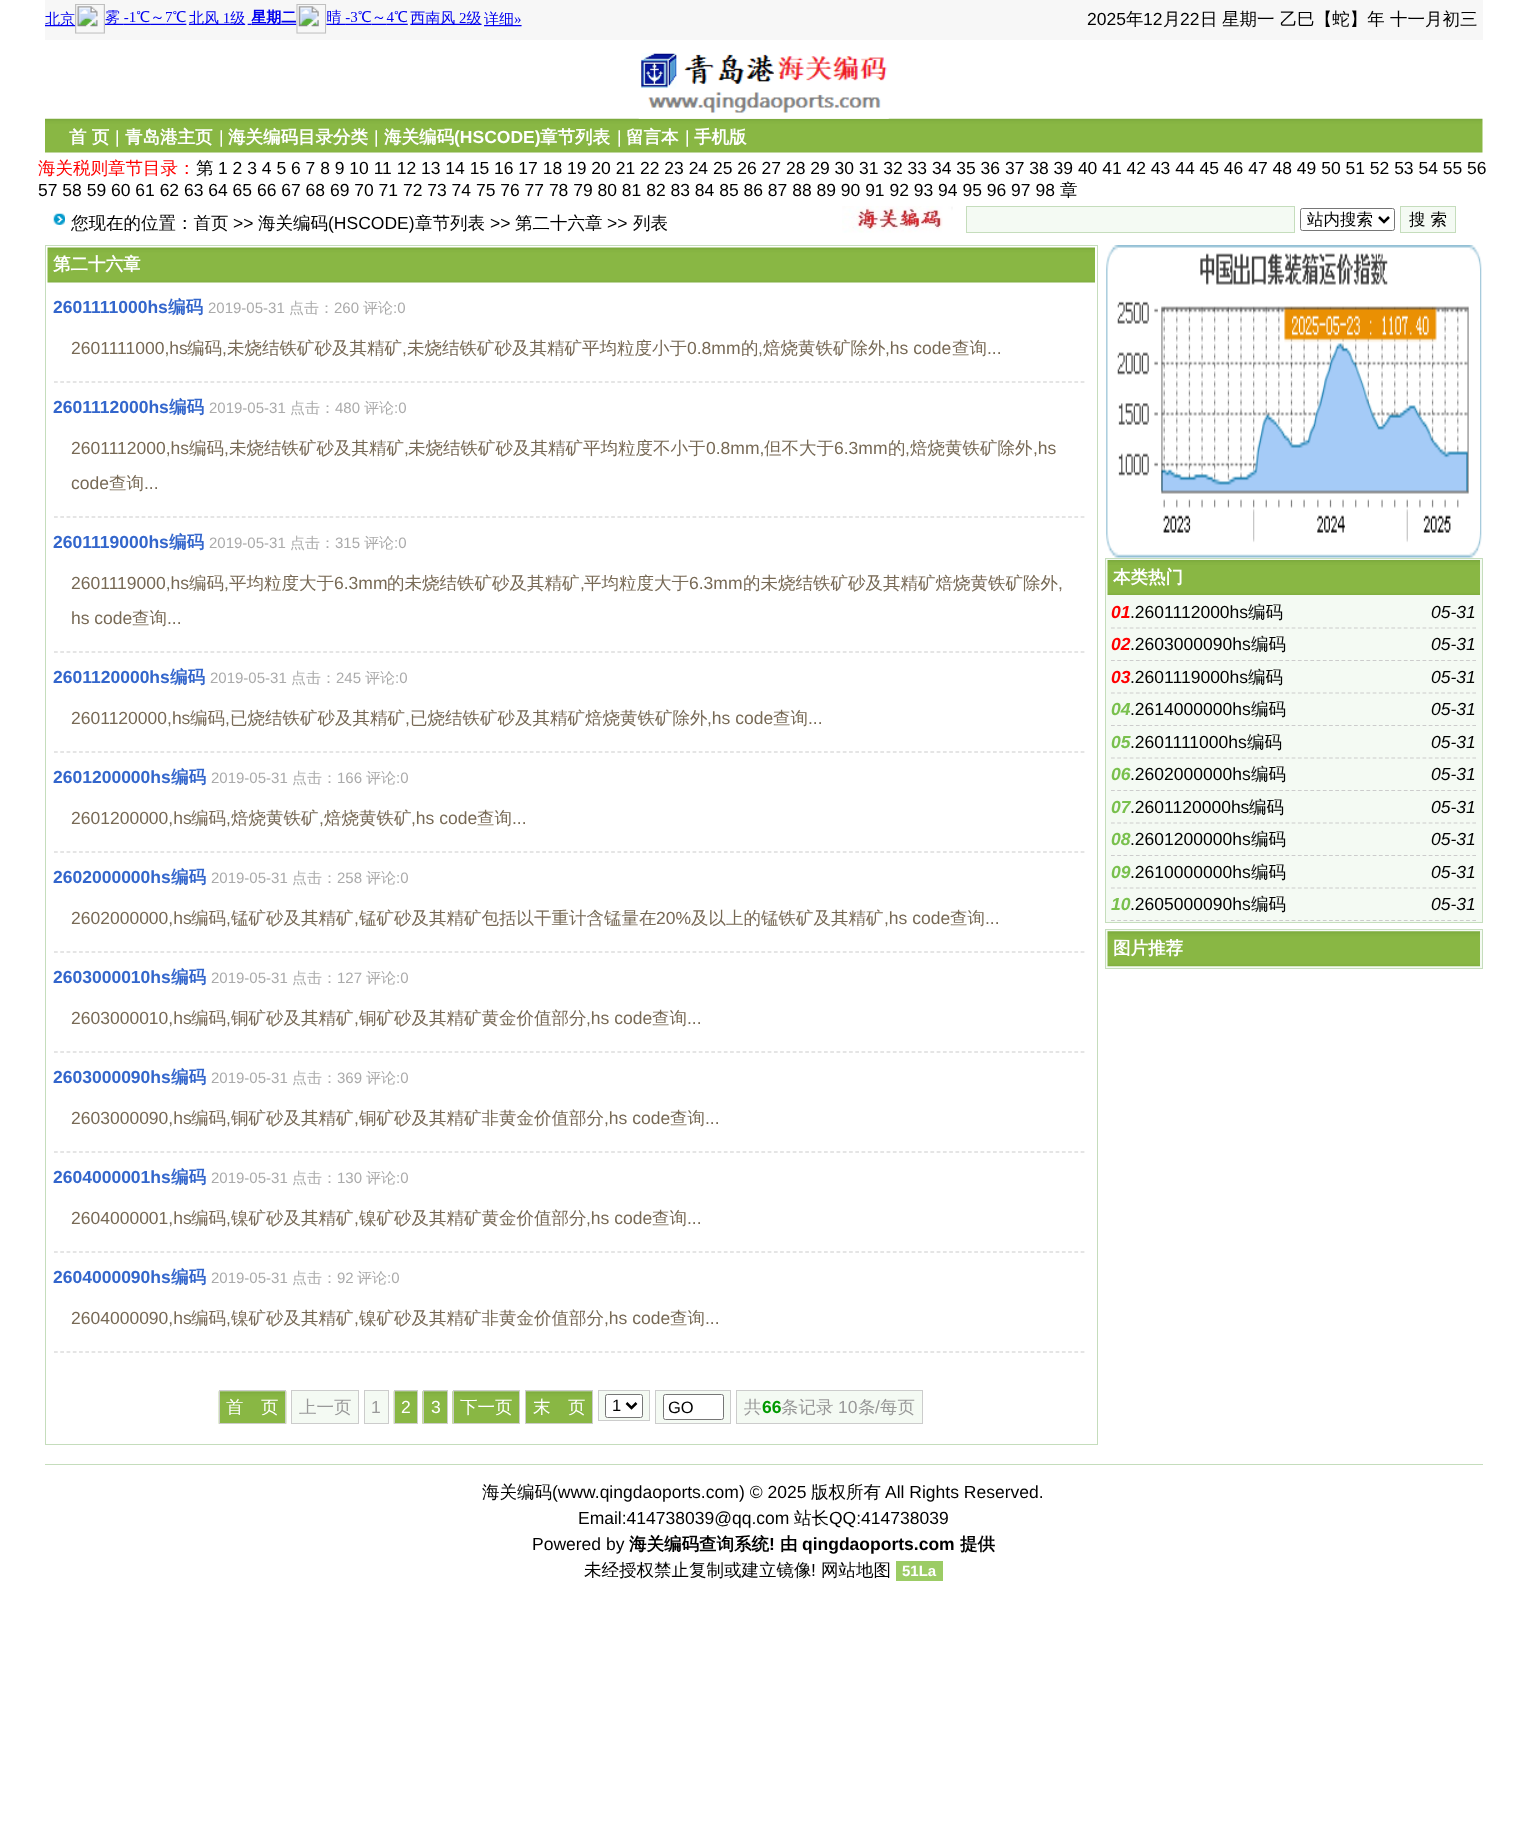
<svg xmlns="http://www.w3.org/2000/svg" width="1526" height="1846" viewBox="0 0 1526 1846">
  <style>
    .t1 { font: 17.5px Liberation Sans; fill: #000; }
    .t2 { font: 500 17.5px WenQuanYi Zen Hei; fill: #000; }
    .t3 { font: bold 17.5px WenQuanYi Zen Hei; fill: #fff; }
    .t4 { font: 17.5px Liberation Sans; fill: #fff; }
    .t5 { font: bold 17.5px Liberation Sans; fill: #fff; }
    .t6 { font: 500 17.5px WenQuanYi Zen Hei; fill: #f00; }
    .t7 { font: 500 16.5px WenQuanYi Zen Hei; fill: #000; }
    .t8 { font: bold 17.5px Liberation Sans; fill: #36c; }
    .t9 { font: bold 17.5px WenQuanYi Zen Hei; fill: #36c; }
    .t10 { font: 15px Liberation Sans; fill: #aaa; }
    .t11 { font: 500 15px WenQuanYi Zen Hei; fill: #aaa; }
    .t12 { font: 17.5px Liberation Sans; fill: #776955; }
    .t13 { font: 500 17.5px WenQuanYi Zen Hei; fill: #776955; }
    .t14 { font: 500 17.5px WenQuanYi Zen Hei; fill: #fff; }
    .t15 { font: 500 17.5px WenQuanYi Zen Hei; fill: #999; }
    .t16 { font: 17.5px Liberation Sans; fill: #999; }
    .t17 { font: 16.5px Liberation Sans; fill: #000; }
    .t18 { font: bold 17.5px Liberation Sans; fill: #090; }
    .t19 { font: italic bold 17.5px Liberation Sans; fill: #f00; }
    .t20 { font: italic 17.5px Liberation Sans; fill: #000; }
    .t21 { font: italic bold 17.5px Liberation Sans; fill: #79c04d; }
    .t22 { font: bold 17.5px WenQuanYi Zen Hei; fill: #000; }
    .t23 { font: bold 17.5px Liberation Sans; fill: #000; }
    .t24 { font: bold 15px Liberation Sans; fill: #fff; }
  </style>
  <rect width="100%" height="100%" fill="#fff"/>
  <rect x="45" y="0" width="1438" height="40" fill="#f7f7f7"/>
  <image x="45" y="4" width="477" height="30" href="images/1.png"/>
  <text x="1087" y="25" class="t1">2025</text>
  <text x="1126" y="25" class="t2">年</text>
  <text x="1143" y="25" class="t1">12</text>
  <text x="1163" y="25" class="t2">月</text>
  <text x="1180" y="25" class="t1">22</text>
  <text x="1200" y="25" class="t2">日</text>
  <text x="1222" y="25" class="t2">星期一 乙巳【蛇】年 十一月初三</text>
  <image x="45" y="118" width="1438" height="35" href="images/3.png"/>
  <image x="638" y="53" width="251" height="66" href="images/2.png"/>
  <text x="69" y="143" class="t3">首 页</text>
  <text x="115" y="143" class="t4">|</text>
  <text x="125" y="143" class="t3">青岛港主页</text>
  <text x="219" y="143" class="t4">|</text>
  <text x="228" y="143" class="t3">海关编码目录分类</text>
  <text x="374" y="143" class="t4">|</text>
  <text x="384" y="143" class="t3">海关编码</text>
  <text x="454" y="143" class="t5">(HSCODE)</text>
  <text x="540" y="143" class="t3">章节列表</text>
  <text x="617" y="143" class="t4">|</text>
  <text x="626" y="143" class="t3">留言本</text>
  <text x="685" y="143" class="t4">|</text>
  <text x="694" y="143" class="t3">手机版</text>
  <text x="38" y="174" class="t6">海关税则章节目录：</text>
  <text x="196" y="174" class="t2">第</text>
  <text x="218" y="174" class="t1">1 2 3 4 5 6 7 8 9 10 11 12 13 14 15 16 17 18 19 20 21 22 23 24 25 26 27 28 29 30 31 32 33 34 35 36 37 38 39 40 41 42 43 44 45 46 47 48 49 50 51 52 53 54 55 56</text>
  <text x="38" y="196" class="t1">57 58 59 60 61 62 63 64 65 66 67 68 69 70 71 72 73 74 75 76 77 78 79 80 81 82 83 84 85 86 87 88 89 90 91 92 93 94 95 96 97 98</text>
  <text x="1060" y="196" class="t2">章</text>
  <image x="53" y="213" width="12" height="12" href="images/4.png"/>
  <text x="71" y="229" class="t2">您现在的位置：首页</text>
  <text x="233" y="229" class="t1">&gt;&gt;</text>
  <text x="258" y="229" class="t2">海关编码</text>
  <text x="328" y="229" class="t1">(HSCODE)</text>
  <text x="415" y="229" class="t2">章节列表</text>
  <text x="490" y="229" class="t1">&gt;&gt;</text>
  <text x="515" y="229" class="t2">第二十六章</text>
  <text x="607" y="229" class="t1">&gt;&gt;</text>
  <text x="633" y="229" class="t2">列表</text>
  <image x="842" y="206" width="111" height="27" href="images/5.png"/>
  <rect x="966.5" y="206.5" width="328" height="26" fill="#f4faf3" stroke="#c5ddbc"/>
  <rect x="1300.5" y="208.5" width="94" height="22" rx="2" fill="none" stroke="#767676"/>
  <path d="M1379 217L1384 222L1389 217" fill="none" stroke="#000" stroke-width="2.5"/>
  <text x="1307" y="225" class="t7">站内搜索</text>
  <rect x="1400.5" y="206.5" width="55" height="26" fill="#f4faf3" stroke="#c5ddbc"/>
  <text x="1409" y="225" class="t7">搜 索</text>
  <rect x="45.5" y="245.5" width="1052" height="1199" fill="none" stroke="#c5ddbc"/>
  <image x="47" y="247" width="1048" height="36" href="images/6.png"/>
  <text x="53" y="270" class="t3">第二十六章</text>
  <text x="53" y="313" class="t8">2601111000hs</text>
  <text x="168" y="313" class="t9">编码</text>
  <text x="208" y="313" class="t10">2019-05-31</text>
  <text x="289" y="313" class="t11">点击：</text>
  <text x="334" y="313" class="t10">260</text>
  <text x="363" y="313" class="t11">评论</text>
  <text x="393" y="313" class="t10">:0</text>
  <text x="71" y="354" class="t12">2601111000,hs</text>
  <text x="187" y="354" class="t13">编码</text>
  <text x="222" y="354" class="t12">,</text>
  <text x="227" y="354" class="t13">未烧结铁矿砂及其精矿</text>
  <text x="402" y="354" class="t12">,</text>
  <text x="407" y="354" class="t13">未烧结铁矿砂及其精矿平均粒度小于</text>
  <text x="687" y="354" class="t12">0.8mm</text>
  <text x="741" y="354" class="t13">的</text>
  <text x="758" y="354" class="t12">,</text>
  <text x="763" y="354" class="t13">焙烧黄铁矿除外</text>
  <text x="885" y="354" class="t12">,hs code</text>
  <text x="952" y="354" class="t13">查询</text>
  <text x="987" y="354" class="t12">...</text>
  <path d="M54 382H1085" fill="none" stroke="#ccc" stroke-width="1.2" stroke-dasharray="3.75 2.51"/>
  <text x="53" y="413" class="t8">2601112000hs</text>
  <text x="169" y="413" class="t9">编码</text>
  <text x="209" y="413" class="t10">2019-05-31</text>
  <text x="290" y="413" class="t11">点击：</text>
  <text x="335" y="413" class="t10">480</text>
  <text x="364" y="413" class="t11">评论</text>
  <text x="394" y="413" class="t10">:0</text>
  <text x="71" y="454" class="t12">2601112000,hs</text>
  <text x="189" y="454" class="t13">编码</text>
  <text x="224" y="454" class="t12">,</text>
  <text x="229" y="454" class="t13">未烧结铁矿砂及其精矿</text>
  <text x="404" y="454" class="t12">,</text>
  <text x="408" y="454" class="t13">未烧结铁矿砂及其精矿平均粒度不小于</text>
  <text x="706" y="454" class="t12">0.8mm,</text>
  <text x="764" y="454" class="t13">但不大于</text>
  <text x="834" y="454" class="t12">6.3mm</text>
  <text x="888" y="454" class="t13">的</text>
  <text x="905" y="454" class="t12">,</text>
  <text x="910" y="454" class="t13">焙烧黄铁矿除外</text>
  <text x="1033" y="454" class="t12">,hs</text>
  <text x="71" y="489" class="t12">code</text>
  <text x="109" y="489" class="t13">查询</text>
  <text x="144" y="489" class="t12">...</text>
  <path d="M54 517H1085" fill="none" stroke="#ccc" stroke-width="1.2" stroke-dasharray="3.75 2.51"/>
  <text x="53" y="548" class="t8">2601119000hs</text>
  <text x="169" y="548" class="t9">编码</text>
  <text x="209" y="548" class="t10">2019-05-31</text>
  <text x="290" y="548" class="t11">点击：</text>
  <text x="335" y="548" class="t10">315</text>
  <text x="364" y="548" class="t11">评论</text>
  <text x="394" y="548" class="t10">:0</text>
  <text x="71" y="589" class="t12">2601119000,hs</text>
  <text x="189" y="589" class="t13">编码</text>
  <text x="224" y="589" class="t12">,</text>
  <text x="229" y="589" class="t13">平均粒度大于</text>
  <text x="334" y="589" class="t12">6.3mm</text>
  <text x="387" y="589" class="t13">的未烧结铁矿砂及其精矿</text>
  <text x="580" y="589" class="t12">,</text>
  <text x="584" y="589" class="t13">平均粒度大于</text>
  <text x="689" y="589" class="t12">6.3mm</text>
  <text x="743" y="589" class="t13">的未烧结铁矿砂及其精矿焙烧黄铁矿除外</text>
  <text x="1058" y="589" class="t12">,</text>
  <text x="71" y="624" class="t12">hs code</text>
  <text x="132" y="624" class="t13">查询</text>
  <text x="167" y="624" class="t12">...</text>
  <path d="M54 652H1085" fill="none" stroke="#ccc" stroke-width="1.2" stroke-dasharray="3.75 2.51"/>
  <text x="53" y="683" class="t8">2601120000hs</text>
  <text x="170" y="683" class="t9">编码</text>
  <text x="210" y="683" class="t10">2019-05-31</text>
  <text x="291" y="683" class="t11">点击：</text>
  <text x="336" y="683" class="t10">245</text>
  <text x="365" y="683" class="t11">评论</text>
  <text x="395" y="683" class="t10">:0</text>
  <text x="71" y="724" class="t12">2601120000,hs</text>
  <text x="190" y="724" class="t13">编码</text>
  <text x="225" y="724" class="t12">,</text>
  <text x="230" y="724" class="t13">已烧结铁矿砂及其精矿</text>
  <text x="405" y="724" class="t12">,</text>
  <text x="410" y="724" class="t13">已烧结铁矿砂及其精矿焙烧黄铁矿除外</text>
  <text x="707" y="724" class="t12">,hs code</text>
  <text x="773" y="724" class="t13">查询</text>
  <text x="808" y="724" class="t12">...</text>
  <path d="M54 752H1085" fill="none" stroke="#ccc" stroke-width="1.2" stroke-dasharray="3.75 2.51"/>
  <text x="53" y="783" class="t8">2601200000hs</text>
  <text x="171" y="783" class="t9">编码</text>
  <text x="211" y="783" class="t10">2019-05-31</text>
  <text x="292" y="783" class="t11">点击：</text>
  <text x="337" y="783" class="t10">166</text>
  <text x="366" y="783" class="t11">评论</text>
  <text x="396" y="783" class="t10">:0</text>
  <text x="71" y="824" class="t12">2601200000,hs</text>
  <text x="191" y="824" class="t13">编码</text>
  <text x="226" y="824" class="t12">,</text>
  <text x="231" y="824" class="t13">焙烧黄铁矿</text>
  <text x="319" y="824" class="t12">,</text>
  <text x="324" y="824" class="t13">焙烧黄铁矿</text>
  <text x="411" y="824" class="t12">,hs code</text>
  <text x="477" y="824" class="t13">查询</text>
  <text x="512" y="824" class="t12">...</text>
  <path d="M54 852H1085" fill="none" stroke="#ccc" stroke-width="1.2" stroke-dasharray="3.75 2.51"/>
  <text x="53" y="883" class="t8">2602000000hs</text>
  <text x="171" y="883" class="t9">编码</text>
  <text x="211" y="883" class="t10">2019-05-31</text>
  <text x="292" y="883" class="t11">点击：</text>
  <text x="337" y="883" class="t10">258</text>
  <text x="366" y="883" class="t11">评论</text>
  <text x="396" y="883" class="t10">:0</text>
  <text x="71" y="924" class="t12">2602000000,hs</text>
  <text x="191" y="924" class="t13">编码</text>
  <text x="226" y="924" class="t12">,</text>
  <text x="231" y="924" class="t13">锰矿砂及其精矿</text>
  <text x="354" y="924" class="t12">,</text>
  <text x="359" y="924" class="t13">锰矿砂及其精矿包括以干重计含锰量在</text>
  <text x="656" y="924" class="t12">20%</text>
  <text x="691" y="924" class="t13">及以上的锰铁矿及其精矿</text>
  <text x="884" y="924" class="t12">,hs code</text>
  <text x="950" y="924" class="t13">查询</text>
  <text x="985" y="924" class="t12">...</text>
  <path d="M54 952H1085" fill="none" stroke="#ccc" stroke-width="1.2" stroke-dasharray="3.75 2.51"/>
  <text x="53" y="983" class="t8">2603000010hs</text>
  <text x="171" y="983" class="t9">编码</text>
  <text x="211" y="983" class="t10">2019-05-31</text>
  <text x="292" y="983" class="t11">点击：</text>
  <text x="337" y="983" class="t10">127</text>
  <text x="366" y="983" class="t11">评论</text>
  <text x="396" y="983" class="t10">:0</text>
  <text x="71" y="1024" class="t12">2603000010,hs</text>
  <text x="191" y="1024" class="t13">编码</text>
  <text x="226" y="1024" class="t12">,</text>
  <text x="231" y="1024" class="t13">铜矿砂及其精矿</text>
  <text x="354" y="1024" class="t12">,</text>
  <text x="359" y="1024" class="t13">铜矿砂及其精矿黄金价值部分</text>
  <text x="586" y="1024" class="t12">,hs code</text>
  <text x="652" y="1024" class="t13">查询</text>
  <text x="687" y="1024" class="t12">...</text>
  <path d="M54 1052H1085" fill="none" stroke="#ccc" stroke-width="1.2" stroke-dasharray="3.75 2.51"/>
  <text x="53" y="1083" class="t8">2603000090hs</text>
  <text x="171" y="1083" class="t9">编码</text>
  <text x="211" y="1083" class="t10">2019-05-31</text>
  <text x="292" y="1083" class="t11">点击：</text>
  <text x="337" y="1083" class="t10">369</text>
  <text x="366" y="1083" class="t11">评论</text>
  <text x="396" y="1083" class="t10">:0</text>
  <text x="71" y="1124" class="t12">2603000090,hs</text>
  <text x="191" y="1124" class="t13">编码</text>
  <text x="226" y="1124" class="t12">,</text>
  <text x="231" y="1124" class="t13">铜矿砂及其精矿</text>
  <text x="354" y="1124" class="t12">,</text>
  <text x="359" y="1124" class="t13">铜矿砂及其精矿非黄金价值部分</text>
  <text x="604" y="1124" class="t12">,hs code</text>
  <text x="670" y="1124" class="t13">查询</text>
  <text x="705" y="1124" class="t12">...</text>
  <path d="M54 1152H1085" fill="none" stroke="#ccc" stroke-width="1.2" stroke-dasharray="3.75 2.51"/>
  <text x="53" y="1183" class="t8">2604000001hs</text>
  <text x="171" y="1183" class="t9">编码</text>
  <text x="211" y="1183" class="t10">2019-05-31</text>
  <text x="292" y="1183" class="t11">点击：</text>
  <text x="337" y="1183" class="t10">130</text>
  <text x="366" y="1183" class="t11">评论</text>
  <text x="396" y="1183" class="t10">:0</text>
  <text x="71" y="1224" class="t12">2604000001,hs</text>
  <text x="191" y="1224" class="t13">编码</text>
  <text x="226" y="1224" class="t12">,</text>
  <text x="231" y="1224" class="t13">镍矿砂及其精矿</text>
  <text x="354" y="1224" class="t12">,</text>
  <text x="359" y="1224" class="t13">镍矿砂及其精矿黄金价值部分</text>
  <text x="586" y="1224" class="t12">,hs code</text>
  <text x="652" y="1224" class="t13">查询</text>
  <text x="687" y="1224" class="t12">...</text>
  <path d="M54 1252H1085" fill="none" stroke="#ccc" stroke-width="1.2" stroke-dasharray="3.75 2.51"/>
  <text x="53" y="1283" class="t8">2604000090hs</text>
  <text x="171" y="1283" class="t9">编码</text>
  <text x="211" y="1283" class="t10">2019-05-31</text>
  <text x="292" y="1283" class="t11">点击：</text>
  <text x="337" y="1283" class="t10">92</text>
  <text x="357" y="1283" class="t11">评论</text>
  <text x="387" y="1283" class="t10">:0</text>
  <text x="71" y="1324" class="t12">2604000090,hs</text>
  <text x="191" y="1324" class="t13">编码</text>
  <text x="226" y="1324" class="t12">,</text>
  <text x="231" y="1324" class="t13">镍矿砂及其精矿</text>
  <text x="354" y="1324" class="t12">,</text>
  <text x="359" y="1324" class="t13">镍矿砂及其精矿非黄金价值部分</text>
  <text x="604" y="1324" class="t12">,hs code</text>
  <text x="670" y="1324" class="t13">查询</text>
  <text x="705" y="1324" class="t12">...</text>
  <path d="M54 1352H1085" fill="none" stroke="#ccc" stroke-width="1.2" stroke-dasharray="3.75 2.51"/>
  <image x="218" y="1391" width="69" height="33" href="images/7.png"/>
  <rect x="219.5" y="1390.5" width="66" height="33" fill="none" stroke="#ccc"/>
  <text x="226" y="1413" class="t14">首　页</text>
  <rect x="291.5" y="1390.5" width="67" height="33" fill="#f4faf3" stroke="#ccc"/>
  <text x="299" y="1413" class="t15">上一页</text>
  <rect x="364.5" y="1390.5" width="24" height="33" fill="#f4faf3" stroke="#ccc"/>
  <text x="371" y="1413" class="t16">1</text>
  <image x="393" y="1391" width="24" height="33" href="images/8.png"/>
  <rect x="394.5" y="1390.5" width="23" height="33" fill="none" stroke="#ccc"/>
  <text x="401" y="1413" class="t4">2</text>
  <image x="422" y="1391" width="25" height="33" href="images/9.png"/>
  <rect x="423.5" y="1390.5" width="24" height="33" fill="none" stroke="#ccc"/>
  <text x="431" y="1413" class="t4">3</text>
  <image x="452" y="1391" width="67" height="33" href="images/10.png"/>
  <rect x="453.5" y="1390.5" width="66" height="33" fill="none" stroke="#ccc"/>
  <text x="460" y="1413" class="t14">下一页</text>
  <image x="526" y="1391" width="66" height="32" href="images/11.png"/>
  <rect x="525.5" y="1390.5" width="67" height="33" fill="none" stroke="#ccc"/>
  <text x="533" y="1413" class="t14">末　页</text>
  <rect x="598.5" y="1390.5" width="51" height="30" fill="#f4faf3" stroke="#ccc"/>
  <rect x="605.5" y="1394.5" width="37" height="23" rx="2" fill="#fff" stroke="#767676"/>
  <path d="M626.5 1403L631.5 1408L636.5 1403" fill="none" stroke="#000" stroke-width="2.5"/>
  <text x="612" y="1411" class="t17">1</text>
  <rect x="655.5" y="1390.5" width="75" height="33" fill="#f4faf3" stroke="#ccc"/>
  <rect x="663.5" y="1394.5" width="60" height="25" rx="2" fill="#fff" stroke="#767676"/>
  <text x="668" y="1413" class="t17">GO</text>
  <rect x="736.5" y="1390.5" width="186" height="33" fill="#f4faf3" stroke="#ccc"/>
  <text x="744" y="1413" class="t15">共</text>
  <text x="762" y="1413" class="t18">66</text>
  <text x="781" y="1413" class="t15">条记录</text>
  <text x="838" y="1413" class="t16">10</text>
  <text x="858" y="1413" class="t15">条</text>
  <text x="875" y="1413" class="t16">/</text>
  <text x="880" y="1413" class="t15">每页</text>
  <image x="1106" y="245" width="376" height="313" href="images/12.png"/>
  <rect x="1105.5" y="558.5" width="377" height="364" fill="#f4faf3" stroke="#c5ddbc"/>
  <image x="1107" y="560" width="373" height="35" href="images/13.png"/>
  <text x="1113" y="583" class="t3">本类热门</text>
  <path d="M1111 628H1476" fill="none" stroke="#ccc" stroke-width="1.2" stroke-dasharray="3.75 2.48"/>
  <text x="1111" y="618" class="t19">01</text>
  <text x="1130" y="618" class="t1">.2601112000hs</text>
  <text x="1248" y="618" class="t2">编码</text>
  <text x="1431" y="618" class="t20">05-31</text>
  <path d="M1111 660.5H1476" fill="none" stroke="#ccc" stroke-width="1.2" stroke-dasharray="3.75 2.48"/>
  <text x="1111" y="650" class="t19">02</text>
  <text x="1130" y="650" class="t1">.2603000090hs</text>
  <text x="1251" y="650" class="t2">编码</text>
  <text x="1431" y="650" class="t20">05-31</text>
  <path d="M1111 693H1476" fill="none" stroke="#ccc" stroke-width="1.2" stroke-dasharray="3.75 2.48"/>
  <text x="1111" y="683" class="t19">03</text>
  <text x="1130" y="683" class="t1">.2601119000hs</text>
  <text x="1248" y="683" class="t2">编码</text>
  <text x="1431" y="683" class="t20">05-31</text>
  <path d="M1111 725.5H1476" fill="none" stroke="#ccc" stroke-width="1.2" stroke-dasharray="3.75 2.48"/>
  <text x="1111" y="715" class="t21">04</text>
  <text x="1130" y="715" class="t1">.2614000000hs</text>
  <text x="1251" y="715" class="t2">编码</text>
  <text x="1431" y="715" class="t20">05-31</text>
  <path d="M1111 758H1476" fill="none" stroke="#ccc" stroke-width="1.2" stroke-dasharray="3.75 2.48"/>
  <text x="1111" y="748" class="t21">05</text>
  <text x="1130" y="748" class="t1">.2601111000hs</text>
  <text x="1247" y="748" class="t2">编码</text>
  <text x="1431" y="748" class="t20">05-31</text>
  <path d="M1111 790.5H1476" fill="none" stroke="#ccc" stroke-width="1.2" stroke-dasharray="3.75 2.48"/>
  <text x="1111" y="780" class="t21">06</text>
  <text x="1130" y="780" class="t1">.2602000000hs</text>
  <text x="1251" y="780" class="t2">编码</text>
  <text x="1431" y="780" class="t20">05-31</text>
  <path d="M1111 823H1476" fill="none" stroke="#ccc" stroke-width="1.2" stroke-dasharray="3.75 2.48"/>
  <text x="1111" y="813" class="t21">07</text>
  <text x="1130" y="813" class="t1">.2601120000hs</text>
  <text x="1249" y="813" class="t2">编码</text>
  <text x="1431" y="813" class="t20">05-31</text>
  <path d="M1111 855.5H1476" fill="none" stroke="#ccc" stroke-width="1.2" stroke-dasharray="3.75 2.48"/>
  <text x="1111" y="845" class="t21">08</text>
  <text x="1130" y="845" class="t1">.2601200000hs</text>
  <text x="1251" y="845" class="t2">编码</text>
  <text x="1431" y="845" class="t20">05-31</text>
  <path d="M1111 888H1476" fill="none" stroke="#ccc" stroke-width="1.2" stroke-dasharray="3.75 2.48"/>
  <text x="1111" y="878" class="t21">09</text>
  <text x="1130" y="878" class="t1">.2610000000hs</text>
  <text x="1251" y="878" class="t2">编码</text>
  <text x="1431" y="878" class="t20">05-31</text>
  <path d="M1111 920.5H1476" fill="none" stroke="#ccc" stroke-width="1.2" stroke-dasharray="3.75 2.48"/>
  <text x="1111" y="910" class="t21">10</text>
  <text x="1130" y="910" class="t1">.2605000090hs</text>
  <text x="1251" y="910" class="t2">编码</text>
  <text x="1431" y="910" class="t20">05-31</text>
  <rect x="1105.5" y="929.5" width="377" height="39" fill="#f4faf3" stroke="#c5ddbc"/>
  <image x="1107" y="931" width="373" height="36" href="images/14.png"/>
  <text x="1113" y="954" class="t3">图片推荐</text>
  <rect x="45" y="1464" width="1438" height="1" fill="#c5ddbc"/>
  <text x="482" y="1498" class="t2">海关编码</text>
  <text x="552" y="1498" class="t1">(www.qingdaoports.com</text>
  <text x="739" y="1498" class="t1">) © 2025</text>
  <text x="811" y="1498" class="t2">版权所有</text>
  <text x="885" y="1498" class="t1">All Rights Reserved.</text>
  <text x="578" y="1524" class="t1">Email:414738039@qq.com</text>
  <text x="794" y="1524" class="t2">站长</text>
  <text x="829" y="1524" class="t1">QQ:414738039</text>
  <text x="532" y="1550" class="t1">Powered by</text>
  <text x="629" y="1550" class="t22">海关编码查询系统</text>
  <text x="769" y="1550" class="t23">!</text>
  <text x="780" y="1550" class="t22">由</text>
  <text x="802" y="1550" class="t23">qingdaoports.com</text>
  <text x="960" y="1550" class="t22">提供</text>
  <text x="584" y="1576" class="t2">未经授权禁止复制或建立镜像</text>
  <text x="811" y="1576" class="t1">!</text>
  <text x="821" y="1576" class="t2">网站地图</text>
  <rect x="896" y="1561" width="47" height="20" fill="#9ccc65"/>
  <text x="902" y="1576" class="t24">51La</text>
</svg>
